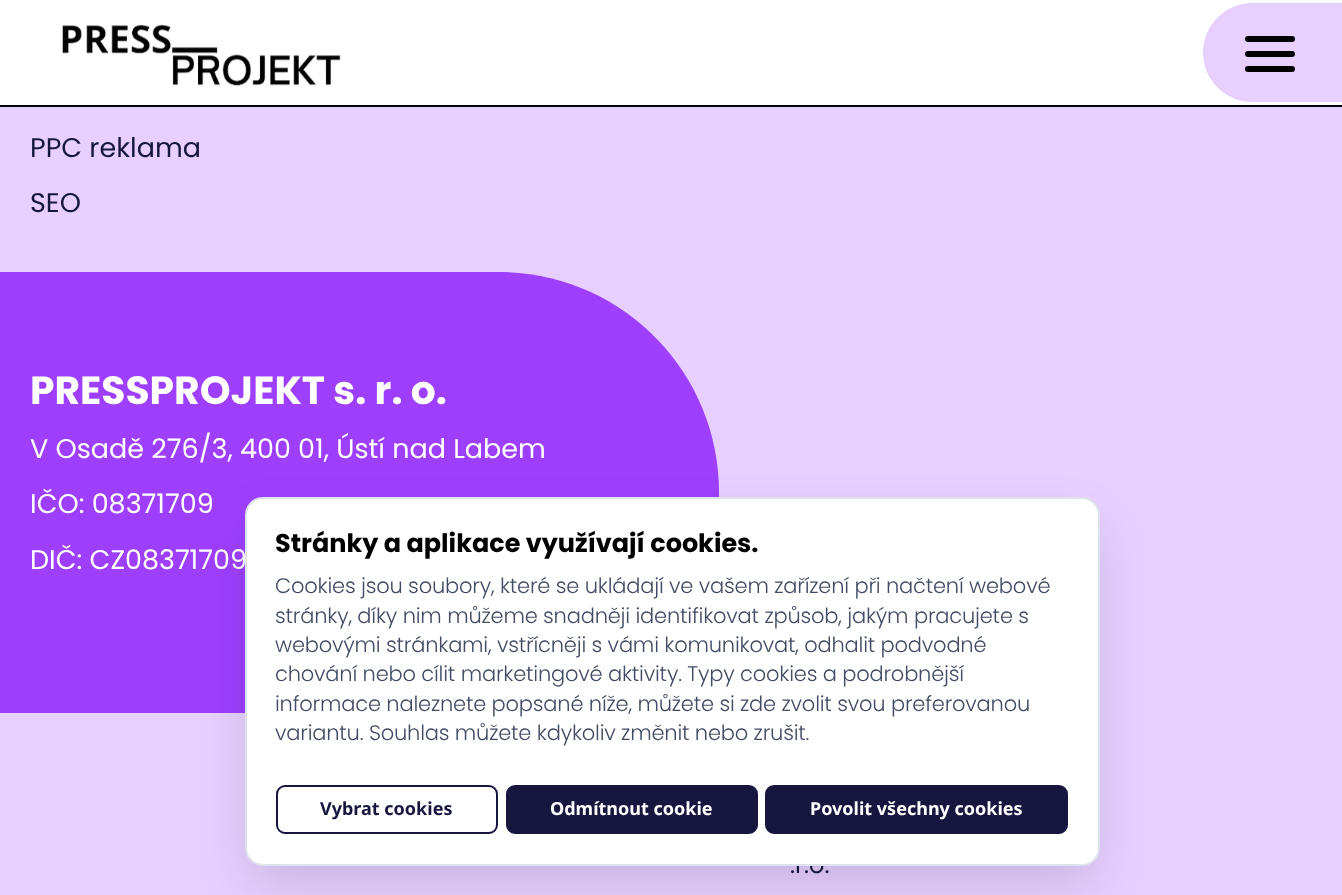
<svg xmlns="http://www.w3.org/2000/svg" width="1342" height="895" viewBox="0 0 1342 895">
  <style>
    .t1 { font: 27px Poppins; fill: #16163f; }
    .t2 { font: bold 39.25px Poppins; fill: #fff; }
    .t3 { font: 27px Poppins; fill: #fff; }
    .t4 { font: 24px Poppins; fill: #16163f; }
    .t5 { font: bold 25.5px Poppins; fill: #000; }
    .t6 { font: 300 21px Poppins; letter-spacing: -0.2px; fill: #414b63; }
    .t7 { font: bold 18px Noto Sans; fill: #16163f; }
    .t8 { font: bold 18px Noto Sans; fill: #fff; }
  </style>
  <rect width="100%" height="100%" fill="#e7cfff"/>
  <rect x="0" y="0" width="1342" height="105" fill="#fff"/>
  <rect x="0" y="105" width="1342" height="2" fill="#000"/>
  <image x="62" y="24" width="279" height="62" href="images/1.png"/>
  <rect x="1203" y="3" width="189" height="99" rx="49.5" fill="#e7cffe"/>
  <rect x="1245" y="36" width="50" height="6" rx="3" fill="#000"/>
  <rect x="1245" y="51" width="50" height="6" rx="3" fill="#000"/>
  <rect x="1245" y="66" width="50" height="6" rx="3" fill="#000"/>
  <text x="30" y="157" class="t1">PPC reklama</text>
  <text x="30" y="212" class="t1">SEO</text>
  <path d="M0 272H498.5C620.5 272 719 370.5 719 492.5C719 614.5 620.5 713 498.5 713H0Z" fill="#9e3ffd"/>
  <text x="30" y="404" class="t2">PRESSPROJEKT s. r. o.</text>
  <text x="30" y="458" class="t3">V Osadě 276/3, 400 01, Ústí nad Labem</text>
  <text x="30" y="513" class="t3">IČO: 08371709</text>
  <text x="30" y="569" class="t3">DIČ: CZ08371709</text>
  <text x="790" y="873" class="t4">.r.o.</text>
  <rect x="252" y="527" width="840" height="354" rx="11" fill="#09111d26" filter="blur(26px)"/>
  <rect x="246" y="498" width="853" height="367" rx="17" fill="#fff" stroke="#dee2ea" stroke-width="2"/>
  <text x="275" y="552" class="t5">Stránky a aplikace využívají cookies.</text>
  <text x="275" y="593" class="t6">Cookies jsou soubory, které se ukládají ve vašem zařízení při načtení webové</text>
  <text x="275" y="623" class="t6">stránky, díky nim můžeme snadněji identifikovat způsob, jakým pracujete s</text>
  <text x="275" y="652" class="t6">webovými stránkami, vstřícněji s vámi komunikovat, odhalit podvodné</text>
  <text x="275" y="681" class="t6">chování nebo cílit marketingové aktivity. Typy cookies a podrobnější</text>
  <text x="275" y="711" class="t6">informace naleznete popsané níže, můžete si zde zvolit svou preferovanou</text>
  <text x="275" y="740" class="t6">variantu. Souhlas můžete kdykoliv změnit nebo zrušit.</text>
  <rect x="277" y="786" width="220" height="47" rx="8" fill="none" stroke="#16163f" stroke-width="2"/>
  <text x="320" y="815" class="t7">Vybrat cookies</text>
  <rect x="507" y="786" width="250" height="47" rx="8" fill="#16163f" stroke="#16163f" stroke-width="2"/>
  <text x="550" y="815" class="t8">Odmítnout cookie</text>
  <rect x="766" y="786" width="301" height="47" rx="8" fill="#16163f" stroke="#16163f" stroke-width="2"/>
  <text x="810" y="815" class="t8">Povolit všechny cookies</text>
</svg>
